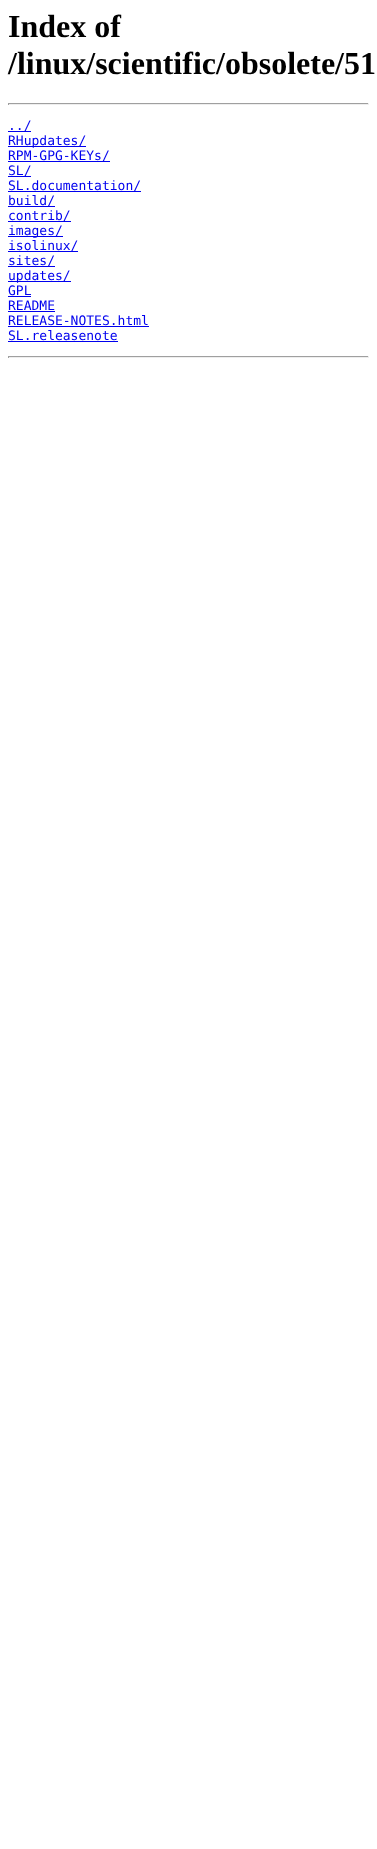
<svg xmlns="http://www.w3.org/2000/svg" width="377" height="1849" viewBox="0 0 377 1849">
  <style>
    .t1 { font: bold 32px Liberation Serif; fill: #000; }
    .t2 { font: 13px DejaVu Sans Mono; fill: #00e; }
  </style>
  <rect width="100%" height="100%" fill="#fff"/>
  <text x="8" y="37" class="t1">Index of</text>
  <text x="8" y="74" class="t1">/linux/scientific/obsolete/51</text>
  <rect x="8" y="103" width="361" height="1" fill="#9f9f9f"/>
  <rect x="368" y="103" width="1" height="2" fill="#eee"/>
  <rect x="8" y="104" width="361" height="1" fill="#eee"/>
  <rect x="8" y="103" width="1" height="2" fill="#9f9f9f"/>
  <rect x="8" y="131" width="23" height="1" fill="#00e"/>
  <text x="8" y="130" class="t2">../</text>
  <rect x="8" y="146" width="78" height="1" fill="#00e"/>
  <text x="8" y="145" class="t2">RHupdates/</text>
  <rect x="8" y="161" width="102" height="1" fill="#00e"/>
  <text x="8" y="160" class="t2">RPM-GPG-KEYs/</text>
  <rect x="8" y="176" width="23" height="1" fill="#00e"/>
  <text x="8" y="175" class="t2">SL/</text>
  <rect x="8" y="191" width="133" height="1" fill="#00e"/>
  <text x="8" y="190" class="t2">SL.documentation/</text>
  <rect x="8" y="206" width="47" height="1" fill="#00e"/>
  <text x="8" y="205" class="t2">build/</text>
  <rect x="8" y="221" width="63" height="1" fill="#00e"/>
  <text x="8" y="220" class="t2">contrib/</text>
  <rect x="8" y="236" width="55" height="1" fill="#00e"/>
  <text x="8" y="235" class="t2">images/</text>
  <rect x="8" y="251" width="70" height="1" fill="#00e"/>
  <text x="8" y="250" class="t2">isolinux/</text>
  <rect x="8" y="266" width="47" height="1" fill="#00e"/>
  <text x="8" y="265" class="t2">sites/</text>
  <rect x="8" y="281" width="63" height="1" fill="#00e"/>
  <text x="8" y="280" class="t2">updates/</text>
  <text x="8" y="295" class="t2">GPL</text>
  <rect x="8" y="296" width="23" height="1" fill="#00e"/>
  <text x="8" y="310" class="t2">README</text>
  <rect x="8" y="311" width="47" height="1" fill="#00e"/>
  <text x="8" y="325" class="t2">RELEASE-NOTES.html</text>
  <rect x="8" y="326" width="141" height="1" fill="#00e"/>
  <text x="8" y="340" class="t2">SL.releasenote</text>
  <rect x="8" y="341" width="110" height="1" fill="#00e"/>
  <rect x="8" y="356" width="361" height="1" fill="#9f9f9f"/>
  <rect x="368" y="356" width="1" height="2" fill="#eee"/>
  <rect x="8" y="357" width="361" height="1" fill="#eee"/>
  <rect x="8" y="356" width="1" height="2" fill="#9f9f9f"/>
</svg>
